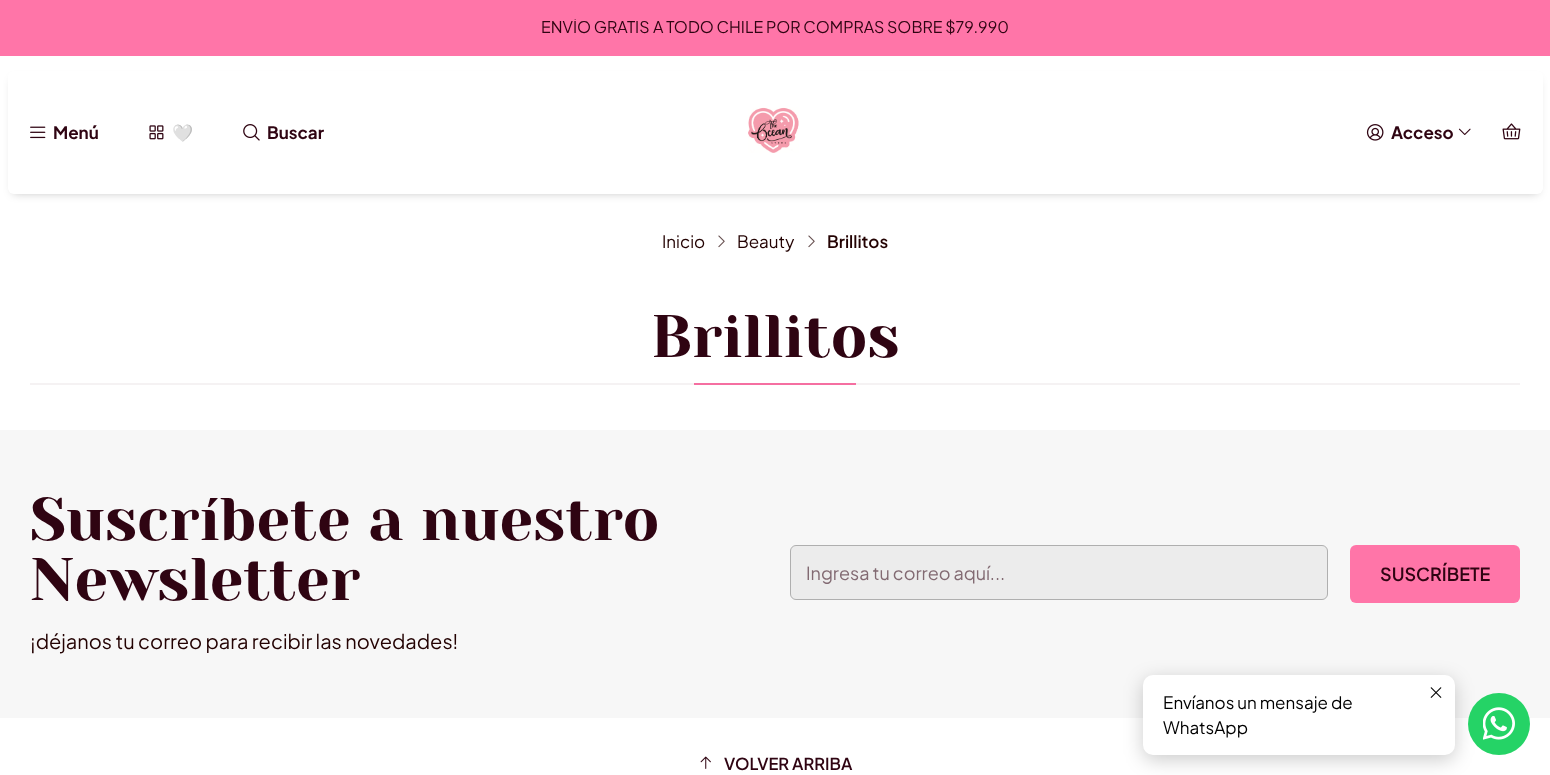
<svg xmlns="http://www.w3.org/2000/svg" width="1550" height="775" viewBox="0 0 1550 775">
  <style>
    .t1 { font: 16px Plus Jakarta Sans; fill: #2f0412; }
    .t2 { font: bold 17px Plus Jakarta Sans; fill: #2f0412; }
    .t3 { font: bold 17px Noto Color Emoji; fill: #2f0412; }
    .t4 { font: 17px Plus Jakarta Sans; fill: #230202; }
    .t5 { font: 600 17px Plus Jakarta Sans; fill: #230202; }
    .t6 { font: 60px Yeseva One; fill: #2f0412; }
    .t7 { font: 20px Plus Jakarta Sans; fill: #230202; }
    .t8 { font: 18px Plus Jakarta Sans; fill: #826a72; }
    .t9 { font: 600 18px Plus Jakarta Sans; fill: #2f0412; }
    .t10 { font: 600 16.5px Plus Jakarta Sans; fill: #2f0412; }
    .t11 { font: 17px Plus Jakarta Sans; fill: #000; }
  </style>
  <defs>
    <clipPath id="clip1"><rect x="15" y="19" width="1520" height="19"/></clipPath>
  </defs>
  <rect width="100%" height="100%" fill="#fff"/>
  <rect x="30" y="383" width="1490" height="2" fill="#f5f2f3"/>
  <rect x="0" y="0" width="1550" height="56" fill="#ff75a8"/>
  <g clip-path="url(#clip1)">
    <text x="541" y="33" class="t1">ENVÍO GRATIS</text>
  </g>
  <text x="653" y="33" class="t1">A TODO CHILE POR COMPRAS SOBRE $79.990</text>
  <rect x="13" y="80" width="1525" height="113" rx="1" fill="#00000040" filter="blur(5px)"/>
  <rect x="8" y="71" width="1535" height="123" rx="6" fill="#fff"/>
  <image x="30" y="126" width="16" height="13" href="images/1.png"/>
  <text x="53" y="139" class="t2">Menú</text>
  <image x="149" y="125" width="15" height="15" href="images/2.png"/>
  <text x="172" y="139" class="t3">🤍</text>
  <image x="243" y="124" width="17" height="17" href="images/3.png"/>
  <text x="267" y="139" class="t2">Buscar</text>
  <image x="748" y="107" width="51" height="46" href="images/4.png"/>
  <image x="1366" y="124" width="18" height="17" href="images/5.png"/>
  <text x="1391" y="139" class="t2">Acceso</text>
  <image x="1458" y="128" width="13" height="7" href="images/6.png"/>
  <image x="1502" y="123" width="19" height="17" href="images/7.png"/>
  <text x="662" y="248" class="t4">Inicio</text>
  <image x="718" y="235" width="7" height="13" href="images/8.png"/>
  <text x="737" y="248" class="t4">Beauty</text>
  <image x="808" y="235" width="7" height="13" href="images/8.png"/>
  <text x="827" y="248" class="t5">Brillitos</text>
  <text x="651" y="357" class="t6">Brillitos</text>
  <rect x="694" y="383" width="162" height="2" fill="#f56fa1"/>
  <rect x="0" y="430" width="1550" height="288" fill="#f7f7f7"/>
  <text x="30" y="540" class="t6">Suscríbete a nuestro</text>
  <text x="30" y="600" class="t6">Newsletter</text>
  <text x="30" y="649" class="t7">¡déjanos tu correo para recibir las novedades!</text>
  <rect x="790.5" y="545.5" width="537" height="54" rx="5.5" fill="#ececec" stroke="#afafaf"/>
  <text x="806" y="580" class="t8">Ingresa tu correo aquí...</text>
  <rect x="1350" y="545" width="170" height="58" rx="6" fill="#ff75a8"/>
  <text x="1380" y="581" class="t9">SUSCRÍBETE</text>
  <image x="700" y="756" width="11" height="13" href="images/9.png"/>
  <text x="724" y="770" class="t10">VOLVER ARRIBA</text>
  <rect x="1143" y="680" width="312" height="80" rx="10" fill="#00000033" filter="blur(9.5px)"/>
  <rect x="1143" y="675" width="312" height="80" rx="10" fill="#fff"/>
  <image x="1430" y="687" width="12" height="11" href="images/10.png"/>
  <text x="1163" y="709" class="t11">Envíanos un mensaje de</text>
  <text x="1163" y="734" class="t11">WhatsApp</text>
  <circle cx="1499" cy="724" r="31" fill="#25d366"/>
  <image x="1483" y="707" width="32" height="33" href="images/11.png"/>
</svg>
